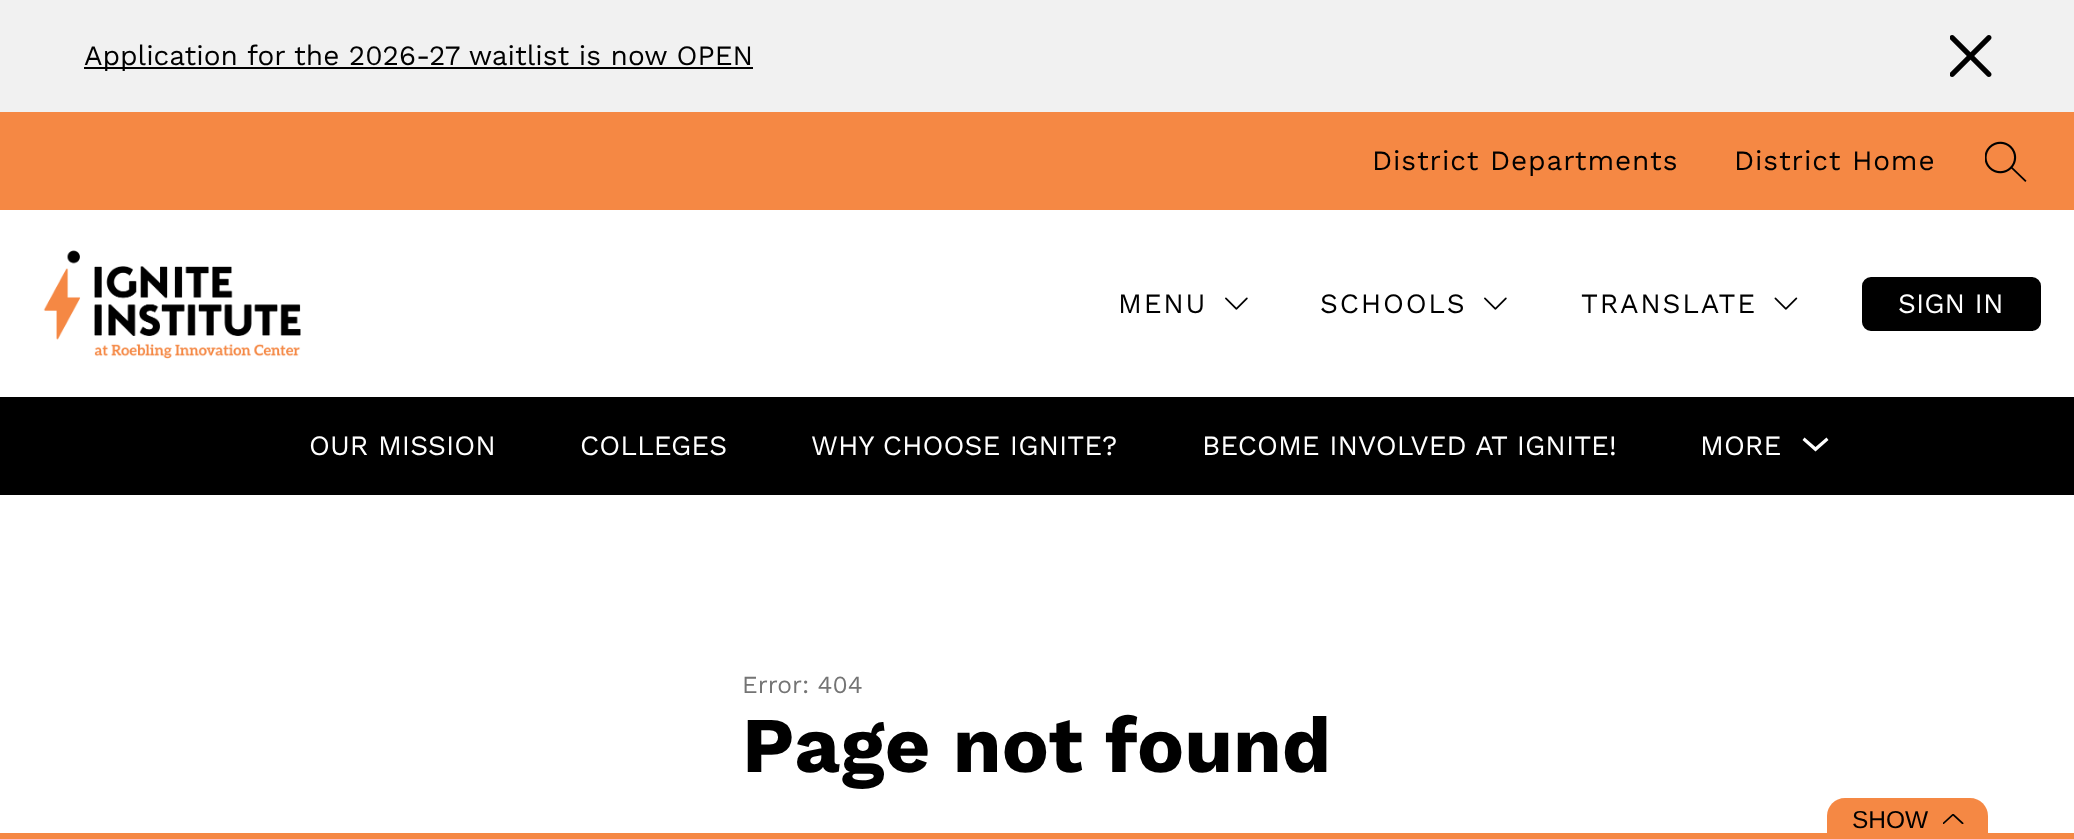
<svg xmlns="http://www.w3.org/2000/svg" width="2074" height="839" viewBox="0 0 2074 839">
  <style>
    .t1 { font: 28px Work Sans; fill: #000; }
    .t2 { font: 28px Work Sans; letter-spacing: 0.9px; fill: #000; }
    .t3 { font: 28px Work Sans; letter-spacing: 1.75px; fill: #000; }
    .t4 { font: 28px Work Sans; fill: #fff; }
    .t5 { font: 24.5px Work Sans; fill: #747474; }
    .t6 { font: bold 78.75px Work Sans; fill: #000; }
    .t7 { font: 24.5px Liberation Sans; fill: #000; }
  </style>
  <rect width="100%" height="100%" fill="#fff"/>
  <rect x="0" y="0" width="2074" height="112" fill="#f1f1f1"/>
  <rect x="84" y="67" width="669" height="2" fill="#000"/>
  <text x="84" y="65" class="t1">Application for the 2026-27 waitlist is now OPEN</text>
  <image x="1950" y="35" width="42" height="42" href="images/1.png"/>
  <rect x="0" y="112" width="2074" height="98" fill="#f58844"/>
  <text x="1372" y="170" class="t2">District Departments</text>
  <text x="1734" y="170" class="t2">District Home</text>
  <image x="1985" y="141" width="42" height="41" href="images/2.png"/>
  <image x="43" y="250" width="258" height="109" href="images/3.png"/>
  <text x="1118" y="313" class="t3">MENU</text>
  <image x="1225" y="297" width="23" height="13" href="images/4.png"/>
  <text x="1320" y="313" class="t3">SCHOOLS</text>
  <image x="1484" y="297" width="23" height="13" href="images/4.png"/>
  <text x="1581" y="313" class="t3">TRANSLATE</text>
  <image x="1774" y="297" width="24" height="13" href="images/5.png"/>
  <rect x="1863" y="278" width="177" height="52" rx="8" fill="#000" stroke="#000" stroke-width="2"/>
  <text x="1898" y="313" class="t4">SIGN IN</text>
  <rect x="0" y="397" width="2074" height="98" fill="#000"/>
  <text x="309" y="455" class="t4">OUR MISSION</text>
  <text x="580" y="455" class="t4">COLLEGES</text>
  <text x="811" y="455" class="t4">WHY CHOOSE IGNITE?</text>
  <text x="1202" y="455" class="t4">BECOME INVOLVED AT IGNITE!</text>
  <text x="1700" y="455" class="t4">MORE</text>
  <path d="M1826.5 437.5L1815.5 447L1804.5 437.5L1802.5 440L1815.5 451.5L1828.5 440Z" fill="#fff" fill-rule="evenodd"/>
  <text x="742" y="693" class="t5">Error: 404</text>
  <text x="742" y="772" class="t6">Page not found</text>
  <rect x="0" y="833" width="2074" height="6" fill="#f58844"/>
  <path d="M1845 798H1970C1980 798 1988 806 1988 816V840H1827V816C1827 806 1835 798 1845 798Z" fill="#f58844"/>
  <text x="1852" y="828" class="t7">SHOW</text>
  <image x="1943" y="814" width="21" height="10" href="images/6.png"/>
</svg>
